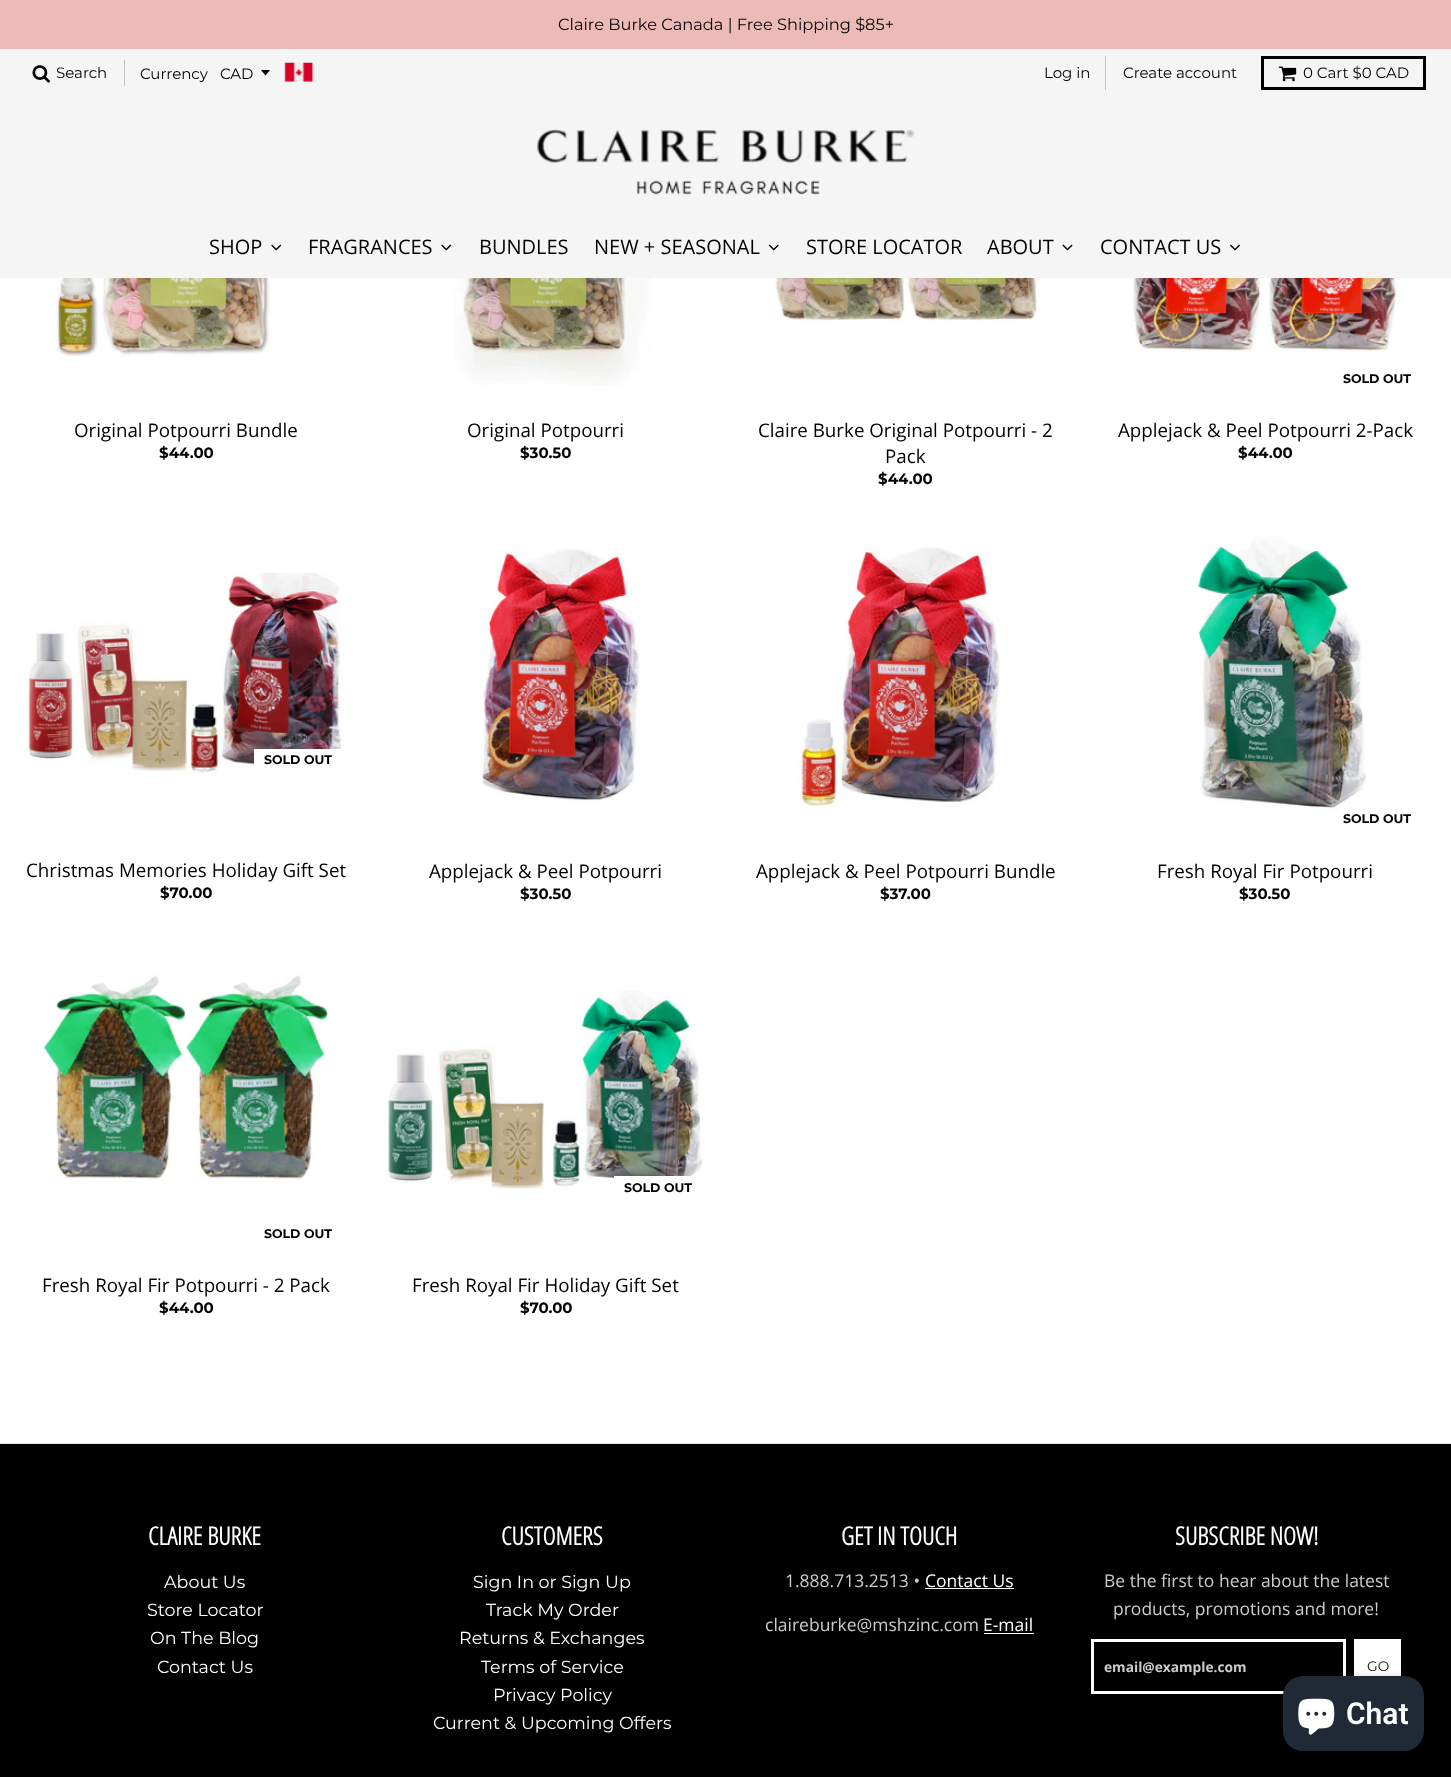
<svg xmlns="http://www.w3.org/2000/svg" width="1451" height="1777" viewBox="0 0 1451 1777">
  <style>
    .t1 { font: 16.25px Montserrat; fill: #000; }
    .t2 { font: 15px Montserrat; fill: #000; }
    .t3 { font: 20px Open Sans; fill: #000; }
    .t4 { font: 18.75px Open Sans; fill: #000; }
    .t5 { font: bold 15px Montserrat; fill: #000; }
    .t6 { font: bold 12.5px Montserrat; fill: #000; }
    .t7 { font: bold 25px Open Sans Condensed; fill: #fff; }
    .t8 { font: 17.5px Montserrat; fill: #fff; }
    .t9 { font: 17.5px Open Sans; fill: #ccc; }
    .t10 { font: 17.5px Open Sans; fill: #fff; }
    .t11 { font: bold 13.75px Open Sans; fill: #ccc; }
    .t12 { font: 13.75px Montserrat; fill: #000; }
    .t13 { font: 600 30px Roboto; fill: #fff; }
  </style>
  <rect width="100%" height="100%" fill="#fff"/>
  <rect x="0" y="0" width="1451" height="49" fill="#edbbb7"/>
  <text x="558" y="30" class="t1">Claire Burke Canada | Free Shipping $85+</text>
  <rect x="0" y="49" width="1451" height="229" fill="#f5f5f5"/>
  <image x="32" y="65" width="18" height="18" href="images/1.png"/>
  <text x="56" y="78" class="t2">Search</text>
  <rect x="124" y="60" width="1" height="26" fill="#c4c4c4"/>
  <text x="140" y="79" class="t2">Currency</text>
  <path d="M261 70L265.5 75.5L270 70Z" fill="#000"/>
  <text x="220" y="79" class="t2">CAD</text>
  <image x="284" y="62" width="29" height="20" href="images/2.png"/>
  <rect x="1105" y="56" width="1" height="34" fill="#c4c4c4"/>
  <text x="1044" y="78" class="t2">Log in</text>
  <text x="1123" y="78" class="t2">Create account</text>
  <rect x="1262.5" y="57.5" width="162" height="31" fill="none" stroke="#000" stroke-width="3"/>
  <image x="1278" y="66" width="19" height="16" href="images/3.png"/>
  <text x="1303" y="78" class="t2">0 Cart $0 CAD</text>
  <image x="536" y="129" width="379" height="66" href="images/4.png"/>
  <text x="209" y="254" class="t3">SHOP</text>
  <image x="271" y="244" width="11" height="7" href="images/5.png"/>
  <text x="308" y="254" class="t3">FRAGRANCES</text>
  <image x="441" y="244" width="11" height="7" href="images/5.png"/>
  <text x="479" y="254" class="t3">BUNDLES</text>
  <text x="594" y="254" class="t3">NEW + SEASONAL</text>
  <image x="768" y="244" width="11" height="7" href="images/6.png"/>
  <text x="806" y="254" class="t3">STORE LOCATOR</text>
  <text x="987" y="254" class="t3">ABOUT</text>
  <image x="1062" y="244" width="11" height="7" href="images/7.png"/>
  <text x="1100" y="254" class="t3">CONTACT US</text>
  <image x="1230" y="244" width="10" height="7" href="images/8.png"/>
  <rect x="0" y="1443" width="1451" height="1" fill="#e5e5e5"/>
  <image x="56" y="278" width="214" height="79" href="images/9.png"/>
  <text x="74" y="437" class="t4">Original Potpourri Bundle</text>
  <text x="159" y="458" class="t5">$44.00</text>
  <image x="454" y="278" width="198" height="108" href="images/10.png"/>
  <text x="467" y="437" class="t4">Original Potpourri</text>
  <text x="520" y="458" class="t5">$30.50</text>
  <image x="775" y="278" width="262" height="44" href="images/11.png"/>
  <text x="758" y="437" class="t4">Claire Burke Original Potpourri - 2</text>
  <text x="885" y="463" class="t4">Pack</text>
  <text x="878" y="484" class="t5">$44.00</text>
  <image x="1130" y="278" width="272" height="75" href="images/12.png"/>
  <text x="1343" y="383" class="t6">SOLD OUT</text>
  <text x="1118" y="437" class="t4">Applejack &amp; Peel Potpourri 2-Pack</text>
  <text x="1238" y="458" class="t5">$44.00</text>
  <image x="25" y="572" width="319" height="202" href="images/13.png"/>
  <rect x="254" y="749" width="88" height="22" fill="#fff"/>
  <text x="264" y="764" class="t6">SOLD OUT</text>
  <text x="26" y="877" class="t4">Christmas Memories Holiday Gift Set</text>
  <text x="160" y="898" class="t5">$70.00</text>
  <image x="481" y="549" width="159" height="253" href="images/14.png"/>
  <text x="429" y="878" class="t4">Applejack &amp; Peel Potpourri</text>
  <text x="520" y="899" class="t5">$30.50</text>
  <image x="798" y="547" width="202" height="263" href="images/15.png"/>
  <text x="756" y="878" class="t4">Applejack &amp; Peel Potpourri Bundle</text>
  <text x="880" y="899" class="t5">$37.00</text>
  <image x="1197" y="536" width="169" height="273" href="images/16.png"/>
  <text x="1343" y="823" class="t6">SOLD OUT</text>
  <text x="1157" y="878" class="t4">Fresh Royal Fir Potpourri</text>
  <text x="1239" y="899" class="t5">$30.50</text>
  <image x="42" y="975" width="289" height="207" href="images/17.png"/>
  <text x="264" y="1238" class="t6">SOLD OUT</text>
  <text x="42" y="1292" class="t4">Fresh Royal Fir Potpourri - 2 Pack</text>
  <text x="159" y="1313" class="t5">$44.00</text>
  <image x="385" y="990" width="318" height="199" href="images/18.png"/>
  <rect x="614" y="1176" width="81" height="9" fill="#fff"/>
  <text x="624" y="1192" class="t6">SOLD OUT</text>
  <text x="412" y="1292" class="t4">Fresh Royal Fir Holiday Gift Set</text>
  <text x="520" y="1313" class="t5">$70.00</text>
  <rect x="0" y="1444" width="1451" height="333" fill="#000"/>
  <text x="148" y="1545" class="t7">CLAIRE BURKE</text>
  <text x="164" y="1588" class="t8">About Us</text>
  <text x="147" y="1616" class="t8">Store Locator</text>
  <text x="150" y="1644" class="t8">On The Blog</text>
  <text x="157" y="1673" class="t8">Contact Us</text>
  <text x="501" y="1545" class="t7">CUSTOMERS</text>
  <text x="473" y="1588" class="t8">Sign In or Sign Up</text>
  <text x="486" y="1616" class="t8">Track My Order</text>
  <text x="459" y="1644" class="t8">Returns &amp; Exchanges</text>
  <text x="481" y="1673" class="t8">Terms of Service</text>
  <text x="493" y="1701" class="t8">Privacy Policy</text>
  <text x="433" y="1729" class="t8">Current &amp; Upcoming Offers</text>
  <text x="841" y="1545" class="t7">GET IN TOUCH</text>
  <text x="785" y="1587" class="t9">1.888.713.2513 •</text>
  <text x="925" y="1587" class="t10">Contact Us</text>
  <rect x="925" y="1588" width="89" height="1" fill="#fff"/>
  <text x="765" y="1631" class="t9">claireburke@mshzinc.com</text>
  <text x="983" y="1631" class="t10">E-mail</text>
  <rect x="984" y="1633" width="50" height="1" fill="#fff"/>
  <text x="1175" y="1545" class="t7">SUBSCRIBE NOW!</text>
  <text x="1104" y="1587" class="t9">Be the first to hear about the latest</text>
  <text x="1113" y="1615" class="t9">products, promotions and more!</text>
  <rect x="1092.5" y="1640.5" width="252" height="52" fill="none" stroke="#fff" stroke-width="3"/>
  <text x="1104" y="1672" class="t11">email@example.com</text>
  <rect x="1354" y="1639" width="47" height="37" fill="#fff"/>
  <text x="1367" y="1671" class="t12">GO</text>
  <rect x="1283" y="1676" width="141" height="75" rx="20" fill="#00000026" filter="blur(3px)"/>
  <rect x="1283" y="1676" width="141" height="75" rx="20" fill="#202a36"/>
  <image x="1298" y="1698" width="37" height="37" href="images/19.png"/>
  <text x="1346" y="1724" class="t13">Chat</text>
</svg>
